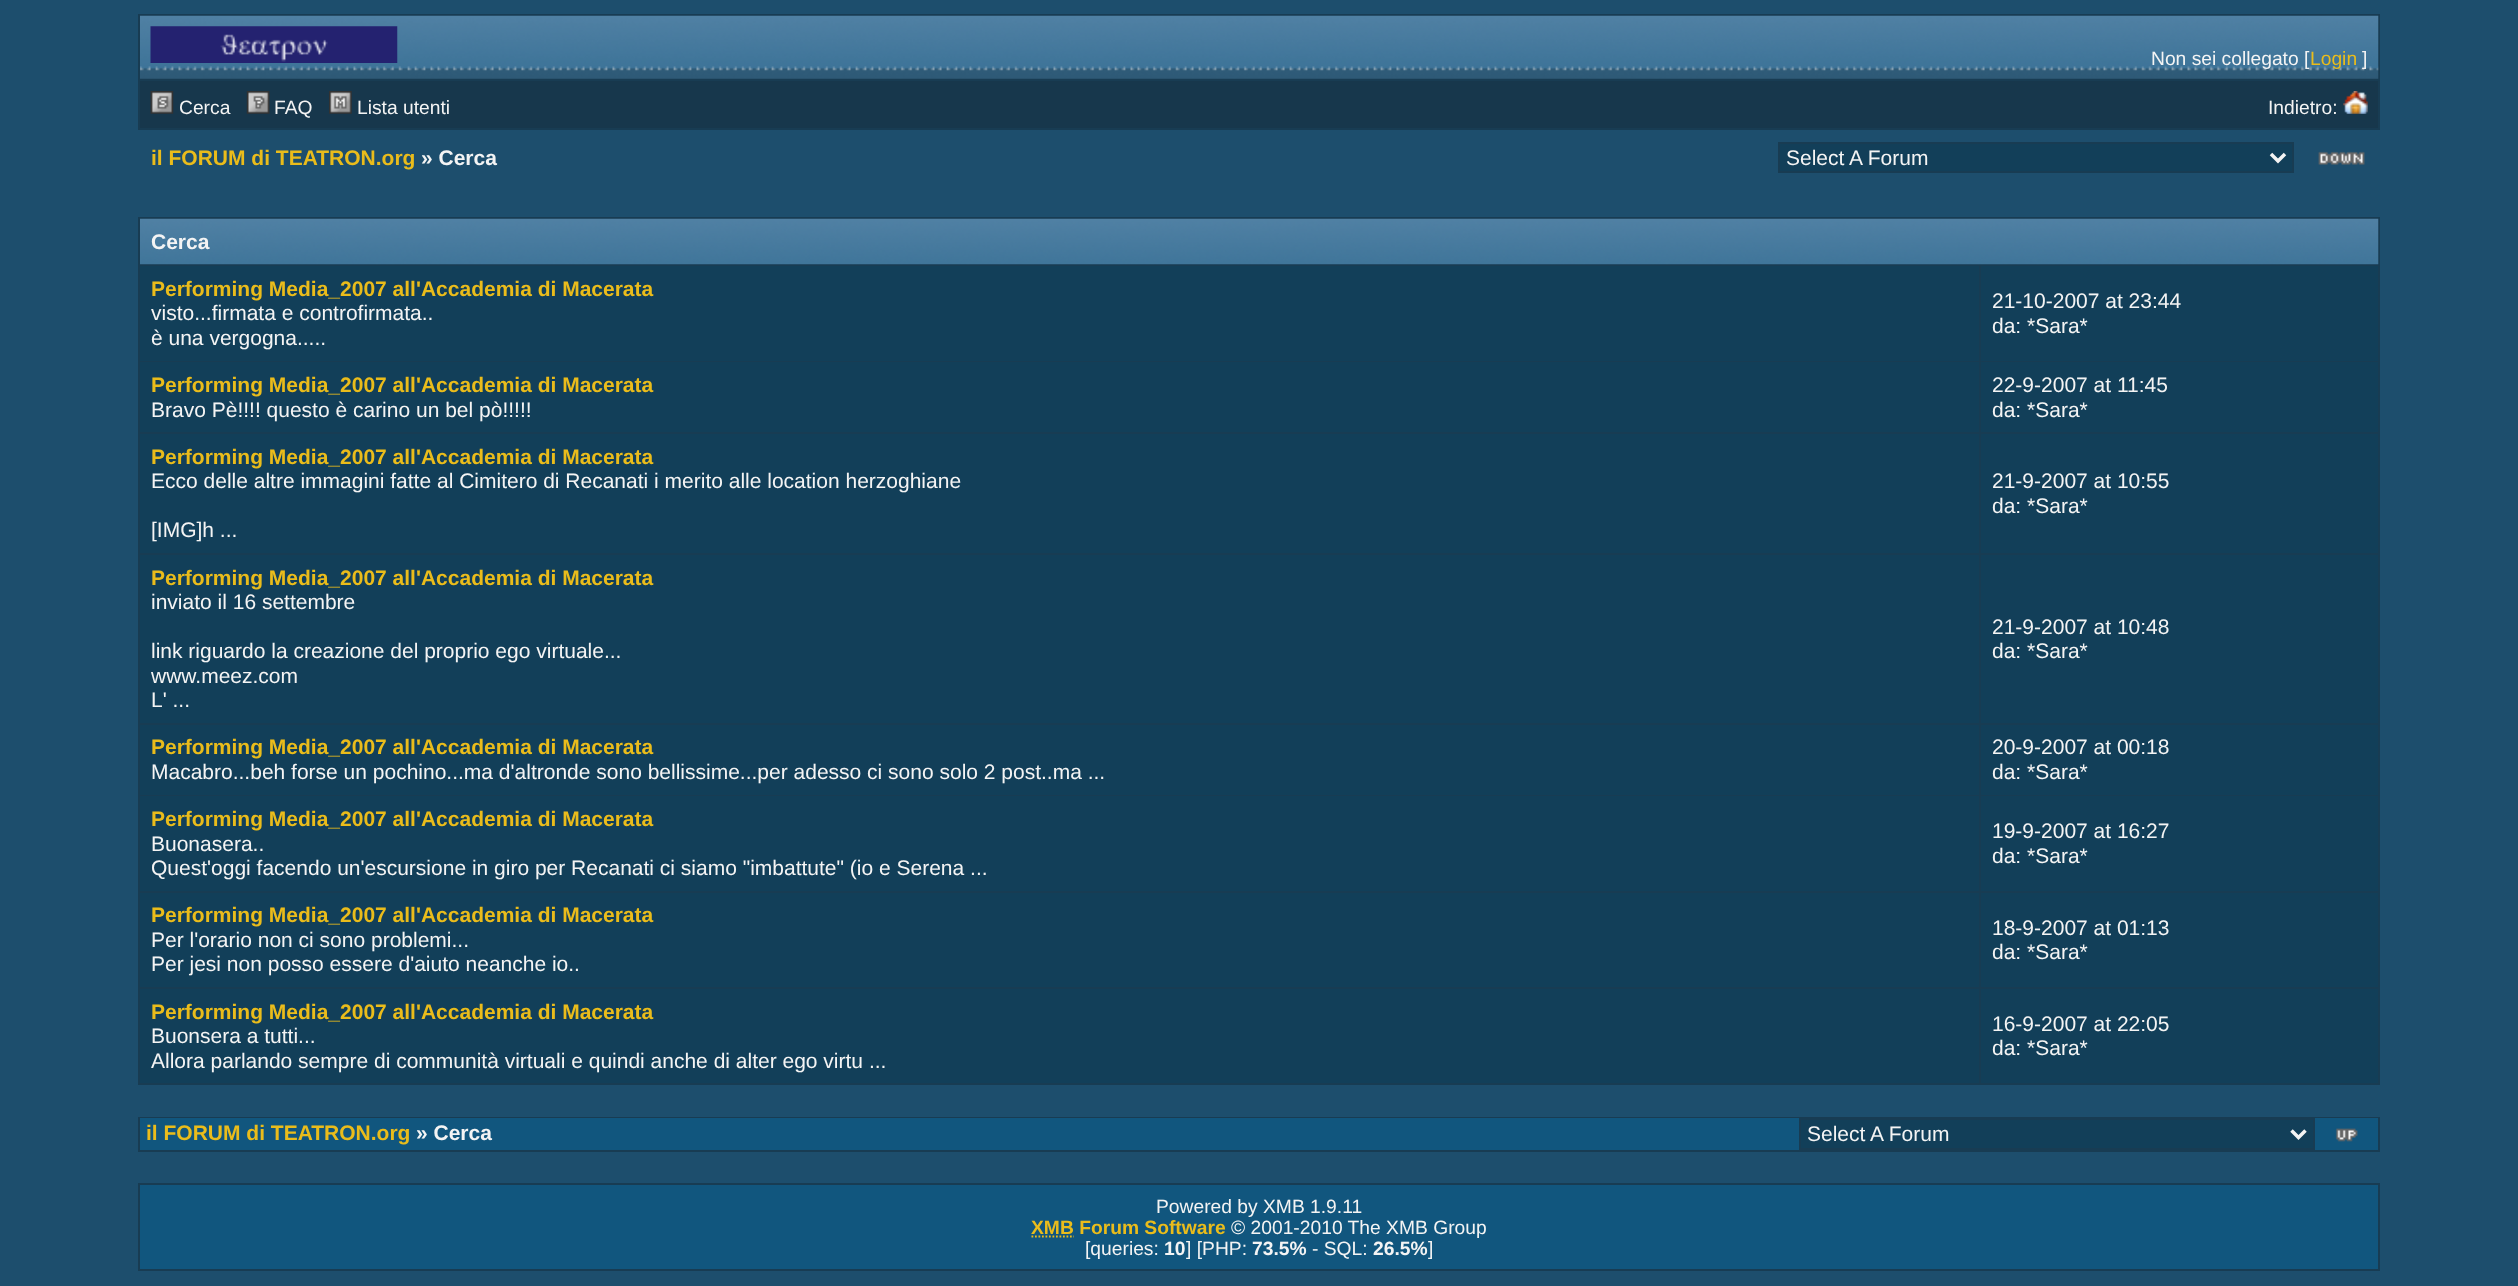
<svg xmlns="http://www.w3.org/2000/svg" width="2518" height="1286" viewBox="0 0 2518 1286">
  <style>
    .t1 { font: 19.25px Liberation Sans; fill: #f4f4f4; }
    .t2 { font: 19.25px Liberation Sans; fill: #eabc1b; }
    .t3 { font: bold 21px Liberation Sans; fill: #eabc1b; }
    .t4 { font: bold 21px Liberation Sans; fill: #f4f4f4; }
    .t5 { font: 21px Liberation Sans; fill: #f4f4f4; }
    .t6 { font: bold 19.25px Liberation Sans; fill: #eabc1b; }
    .t7 { font: bold 19.25px Liberation Sans; fill: #f4f4f4; }
  </style>
  <rect width="100%" height="100%" fill="#1d4e6d"/>
  <rect x="138" y="14" width="2242" height="116" fill="#183c53"/>
  <image x="140" y="15" width="2239" height="64" href="images/1.png"/>
  <image x="150" y="26" width="248" height="37" href="images/2.png"/>
  <text x="2151" y="65" class="t1">Non sei collegato [</text>
  <text x="2310" y="65" class="t2">Login</text>
  <text x="2362" y="65" class="t1">]</text>
  <rect x="140" y="81" width="2238" height="47" fill="#17374c"/>
  <image x="150" y="91" width="24" height="23" href="images/3.png"/>
  <text x="179" y="114" class="t1">Cerca</text>
  <image x="246" y="91" width="24" height="23" href="images/4.png"/>
  <text x="274" y="114" class="t1">FAQ</text>
  <image x="329" y="91" width="23" height="23" href="images/5.png"/>
  <text x="357" y="114" class="t1">Lista utenti</text>
  <text x="2268" y="114" class="t1">Indietro:</text>
  <image x="2343" y="91" width="25" height="23" href="images/6.png"/>
  <text x="151" y="165" class="t3">il FORUM di TEATRON.org</text>
  <text x="421" y="165" class="t4">» Cerca</text>
  <rect x="1779" y="143" width="514" height="29" fill="#123f59" stroke="#183c53" stroke-width="2"/>
  <path d="M2271 154L2278 161L2285 154" fill="none" stroke="#f4f4f4" stroke-width="3.5"/>
  <text x="1786" y="165" class="t5">Select A Forum</text>
  <image x="2318" y="151" width="47" height="14" href="images/7.png"/>
  <rect x="138" y="217" width="2242" height="868" fill="#183c53"/>
  <image x="140" y="218" width="2239" height="47" href="images/8.png"/>
  <text x="151" y="249" class="t4">Cerca</text>
  <rect x="140" y="266" width="1839" height="95" fill="#123f59"/>
  <text x="151" y="296" class="t3">Performing Media_2007 all'Accademia di Macerata</text>
  <text x="151" y="320" class="t5">visto...firmata e controfirmata..</text>
  <text x="151" y="345" class="t5">è una vergogna.....</text>
  <rect x="1981" y="266" width="397" height="95" fill="#123f59"/>
  <text x="1992" y="308" class="t5">21-10-2007 at 23:44</text>
  <text x="1992" y="333" class="t5">da: *Sara*</text>
  <rect x="140" y="362" width="1839" height="70" fill="#123f59"/>
  <text x="151" y="392" class="t3">Performing Media_2007 all'Accademia di Macerata</text>
  <text x="151" y="417" class="t5">Bravo Pè!!!! questo è carino un bel pò!!!!!</text>
  <rect x="1981" y="362" width="397" height="70" fill="#123f59"/>
  <text x="1992" y="392" class="t5">22-9-2007 at 11:45</text>
  <text x="1992" y="417" class="t5">da: *Sara*</text>
  <rect x="140" y="434" width="1839" height="119" fill="#123f59"/>
  <text x="151" y="464" class="t3">Performing Media_2007 all'Accademia di Macerata</text>
  <text x="151" y="488" class="t5">Ecco delle altre immagini fatte al Cimitero di Recanati i merito alle location herzoghiane</text>
  <text x="151" y="537" class="t5">[IMG]h ...</text>
  <rect x="1981" y="434" width="397" height="119" fill="#123f59"/>
  <text x="1992" y="488" class="t5">21-9-2007 at 10:55</text>
  <text x="1992" y="513" class="t5">da: *Sara*</text>
  <rect x="140" y="555" width="1839" height="168" fill="#123f59"/>
  <text x="151" y="585" class="t3">Performing Media_2007 all'Accademia di Macerata</text>
  <text x="151" y="609" class="t5">inviato il 16 settembre</text>
  <text x="151" y="658" class="t5">link riguardo la creazione del proprio ego virtuale...</text>
  <text x="151" y="683" class="t5">www.meez.com</text>
  <text x="151" y="707" class="t5">L' ...</text>
  <rect x="1981" y="555" width="397" height="168" fill="#123f59"/>
  <text x="1992" y="634" class="t5">21-9-2007 at 10:48</text>
  <text x="1992" y="658" class="t5">da: *Sara*</text>
  <rect x="140" y="725" width="1839" height="70" fill="#123f59"/>
  <text x="151" y="754" class="t3">Performing Media_2007 all'Accademia di Macerata</text>
  <text x="151" y="779" class="t5">Macabro...beh forse un pochino...ma d'altronde sono bellissime...per adesso ci sono solo 2 post..ma ...</text>
  <rect x="1981" y="725" width="397" height="70" fill="#123f59"/>
  <text x="1992" y="754" class="t5">20-9-2007 at 00:18</text>
  <text x="1992" y="779" class="t5">da: *Sara*</text>
  <rect x="140" y="796" width="1839" height="95" fill="#123f59"/>
  <text x="151" y="826" class="t3">Performing Media_2007 all'Accademia di Macerata</text>
  <text x="151" y="851" class="t5">Buonasera..</text>
  <text x="151" y="875" class="t5">Quest'oggi facendo un'escursione in giro per Recanati ci siamo "imbattute" (io e Serena ...</text>
  <rect x="1981" y="796" width="397" height="95" fill="#123f59"/>
  <text x="1992" y="838" class="t5">19-9-2007 at 16:27</text>
  <text x="1992" y="863" class="t5">da: *Sara*</text>
  <rect x="140" y="893" width="1839" height="94" fill="#123f59"/>
  <text x="151" y="922" class="t3">Performing Media_2007 all'Accademia di Macerata</text>
  <text x="151" y="947" class="t5">Per l'orario non ci sono problemi...</text>
  <text x="151" y="971" class="t5">Per jesi non posso essere d'aiuto neanche io..</text>
  <rect x="1981" y="893" width="397" height="94" fill="#123f59"/>
  <text x="1992" y="935" class="t5">18-9-2007 at 01:13</text>
  <text x="1992" y="959" class="t5">da: *Sara*</text>
  <rect x="140" y="989" width="1839" height="94" fill="#123f59"/>
  <text x="151" y="1019" class="t3">Performing Media_2007 all'Accademia di Macerata</text>
  <text x="151" y="1043" class="t5">Buonsera a tutti...</text>
  <text x="151" y="1068" class="t5">Allora parlando sempre di communità virtuali e quindi anche di alter ego virtu ...</text>
  <rect x="1981" y="989" width="397" height="94" fill="#123f59"/>
  <text x="1992" y="1031" class="t5">16-9-2007 at 22:05</text>
  <text x="1992" y="1055" class="t5">da: *Sara*</text>
  <rect x="138" y="1117" width="2242" height="35" fill="#183c53"/>
  <rect x="140" y="1118" width="2238" height="32" fill="#11567e"/>
  <text x="146" y="1140" class="t3">il FORUM di TEATRON.org</text>
  <text x="416" y="1140" class="t4">» Cerca</text>
  <rect x="1800" y="1119" width="514" height="30" fill="#123f59" stroke="#183c53" stroke-width="2"/>
  <path d="M2291.5 1130.5L2298.5 1137.5L2305.5 1130.5" fill="none" stroke="#f4f4f4" stroke-width="3.5"/>
  <text x="1807" y="1141" class="t5">Select A Forum</text>
  <image x="2335" y="1128" width="23" height="14" href="images/9.png"/>
  <rect x="138" y="1183" width="2242" height="88" fill="#183c53"/>
  <rect x="140" y="1185" width="2238" height="84" fill="#11567e"/>
  <text x="1156" y="1213" class="t1">Powered by XMB 1.9.11</text>
  <text x="1031" y="1234" class="t6">XMB Forum Software</text>
  <path d="M1031.5 1236.5H1074" fill="none" stroke="#eabc1b" stroke-width="1.8" stroke-dasharray="1.75 1.75"/>
  <text x="1231" y="1234" class="t1">© 2001-2010 The XMB Group</text>
  <text x="1085" y="1255" class="t1">[queries:</text>
  <text x="1164" y="1255" class="t7">10</text>
  <text x="1186" y="1255" class="t1">] [PHP:</text>
  <text x="1252" y="1255" class="t7">73.5%</text>
  <text x="1312" y="1255" class="t1">- SQL:</text>
  <text x="1373" y="1255" class="t7">26.5%</text>
  <text x="1428" y="1255" class="t1">]</text>
</svg>
